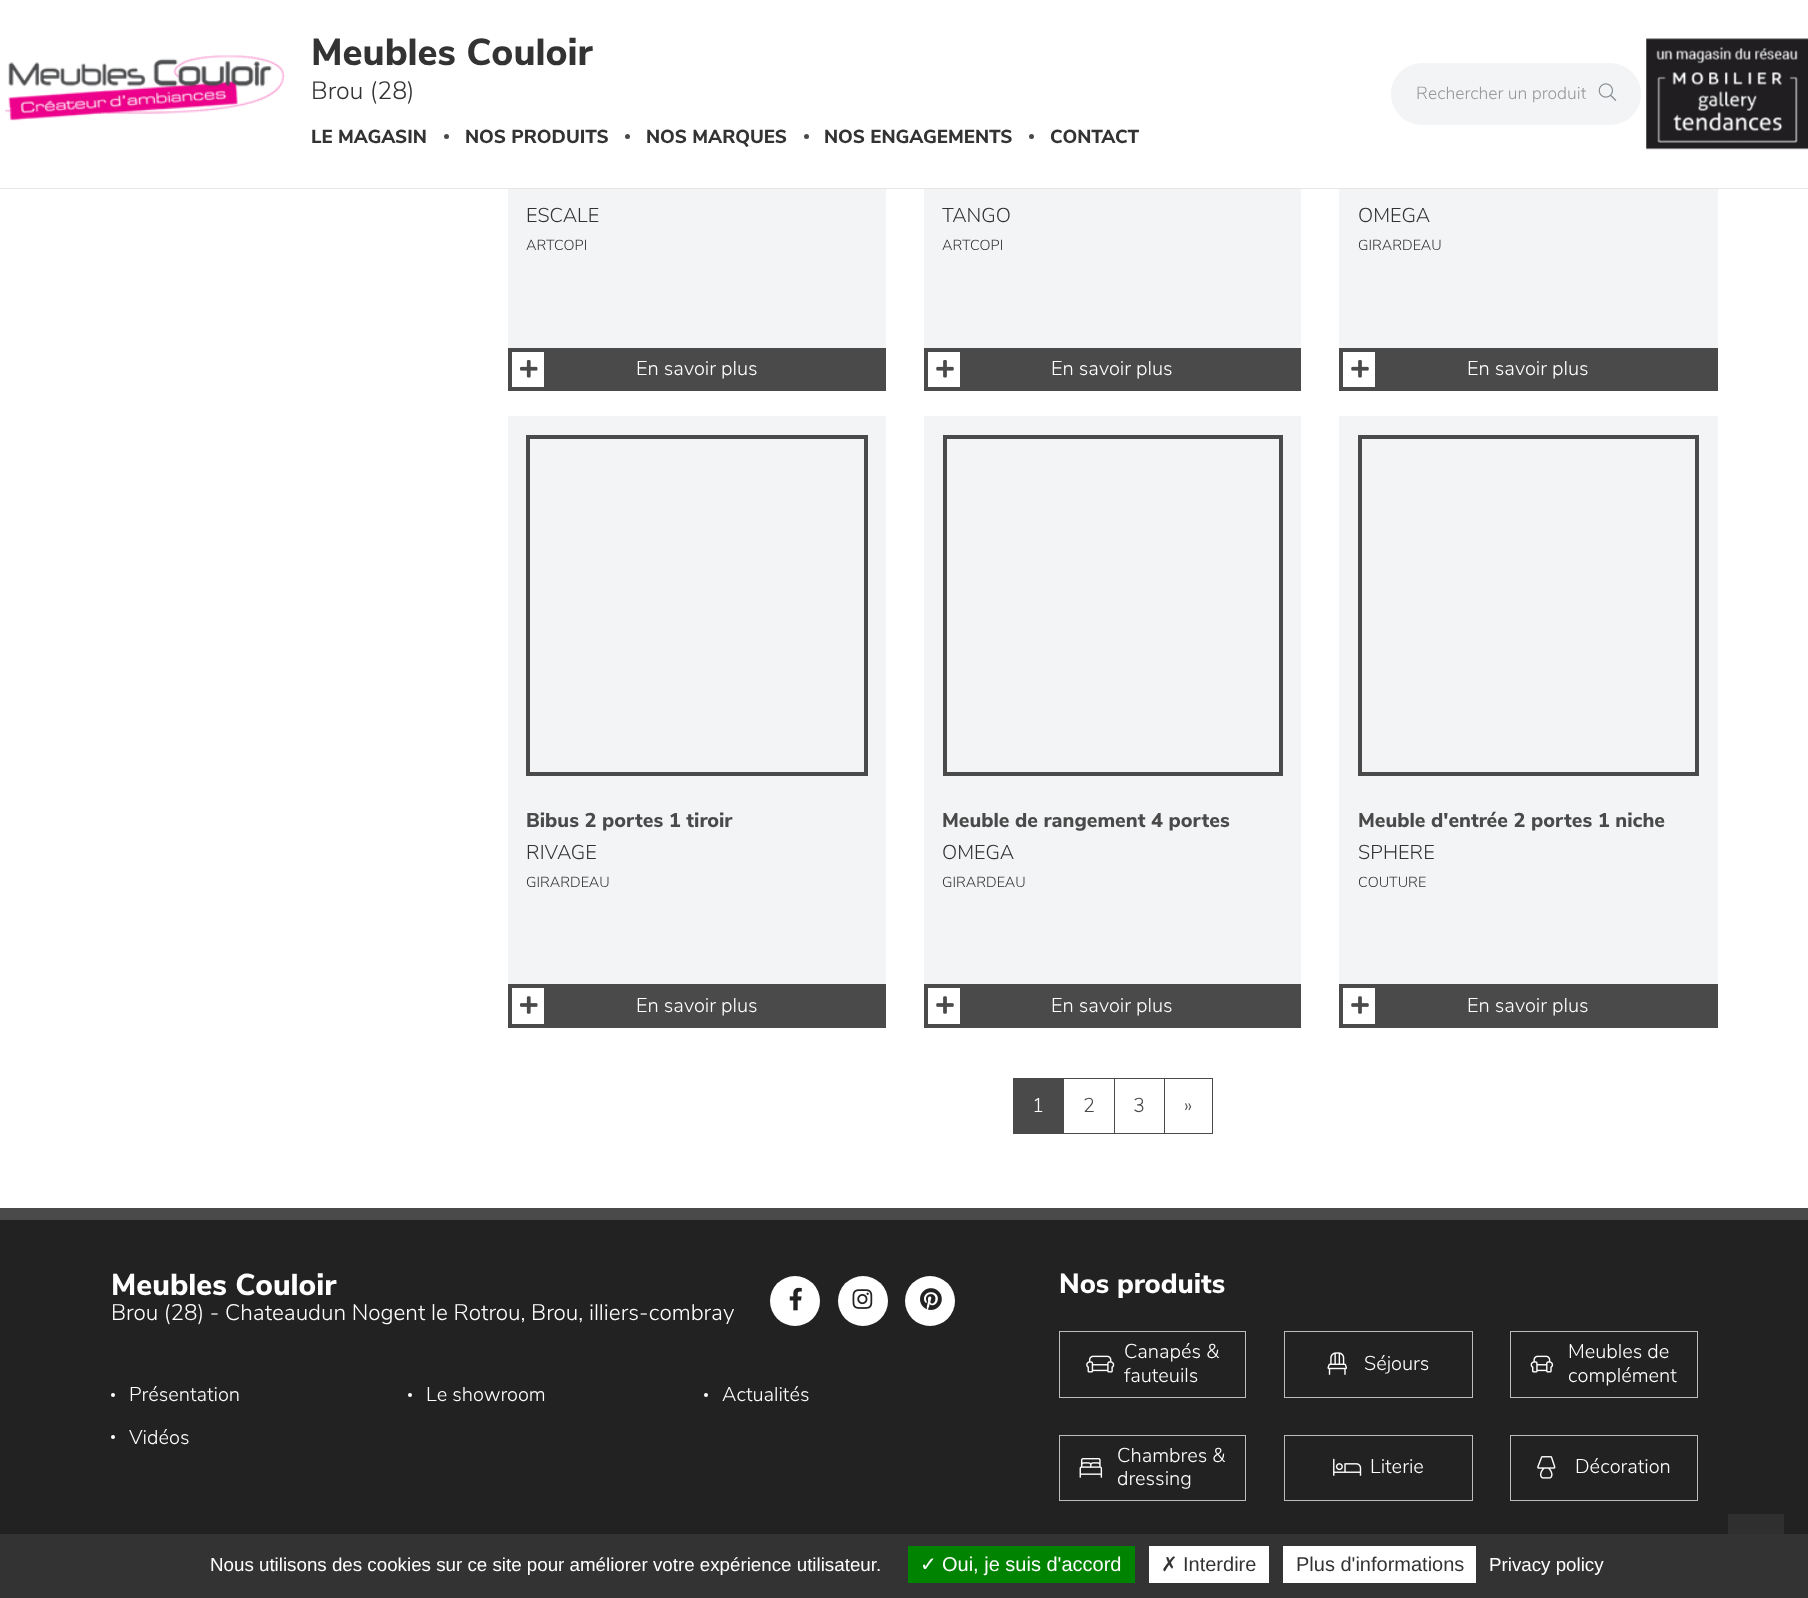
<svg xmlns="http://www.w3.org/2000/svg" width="1808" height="1598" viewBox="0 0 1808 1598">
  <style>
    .t1 { font: 800 37.5px Nunito Sans; fill: #333; }
    .t2 { font: 300 25px Nunito Sans; fill: #333; }
    .t3 { font: 800 18.75px Nunito Sans; fill: #333; }
    .t4 { font: 300 17.5px Nunito Sans; fill: #999; }
    .t5 { font: 300 20px Nunito Sans; fill: #333; }
    .t6 { font: 300 14.5px Nunito Sans; fill: #333; }
    .t7 { font: 300 20px Nunito Sans; fill: #fff; }
    .t8 { font: 800 20px Nunito Sans; fill: #4a4a4a; }
    .t9 { font: 300 20px Nunito Sans; fill: #4a4a4a; }
    .t10 { font: 800 30px Nunito Sans; fill: #fff; }
    .t11 { font: 300 22.5px Nunito Sans; fill: #fff; }
    .t12 { font: 800 27.5px Nunito Sans; fill: #fff; }
    .t13 { font: 18.75px Liberation Sans; fill: #fff; }
    .t14 { font: 20px DejaVu Sans; fill: #fff; }
    .t15 { font: 20px Liberation Sans; fill: #fff; }
    .t16 { font: 20px DejaVu Sans; fill: #333; }
    .t17 { font: 20px Liberation Sans; fill: #333; }
  </style>
  <rect width="100%" height="100%" fill="#fff"/>
  <rect x="0" y="188" width="1808" height="1" fill="#e6e6e6"/>
  <image x="5" y="55" width="280" height="66" href="images/1.png"/>
  <text x="311" y="65" class="t1">Meubles Couloir</text>
  <text x="311" y="99" class="t2">Brou (28)</text>
  <text x="311" y="143" class="t3">LE MAGASIN</text>
  <circle cx="446.5" cy="136.5" r="2.5" fill="#4a4a4a"/>
  <text x="465" y="143" class="t3">NOS PRODUITS</text>
  <circle cx="627.5" cy="136.5" r="2.5" fill="#4a4a4a"/>
  <text x="646" y="143" class="t3">NOS MARQUES</text>
  <circle cx="806.5" cy="136.5" r="2.5" fill="#4a4a4a"/>
  <text x="824" y="143" class="t3">NOS ENGAGEMENTS</text>
  <circle cx="1031.5" cy="136.5" r="2.5" fill="#4a4a4a"/>
  <text x="1050" y="143" class="t3">CONTACT</text>
  <path d="M1422 63H1588V125H1422C1405 125 1391 111 1391 94C1391 77 1405 63 1422 63Z" fill="#f2f4f6"/>
  <text x="1416" y="99" class="t4">Rechercher un produit</text>
  <path d="M1586 63H1610C1627 63 1641 77 1641 94C1641 111 1627 125 1610 125H1586Z" fill="#f2f4f6"/>
  <image x="1598" y="83" width="19" height="18" href="images/2.png"/>
  <image x="1646" y="38" width="162" height="112" href="images/3.png"/>
  <rect x="508" y="189" width="378" height="159" fill="#f2f4f6"/>
  <text x="526" y="222" class="t5">ESCALE</text>
  <text x="526" y="250" class="t6">ARTCOPI</text>
  <rect x="548" y="348" width="338" height="43" fill="#4a4a4a"/>
  <rect x="510" y="350" width="36" height="39" fill="none" stroke="#4a4a4a" stroke-width="4"/>
  <image x="520" y="360" width="18" height="18" href="images/4.png"/>
  <text x="636" y="375" class="t7">En savoir plus</text>
  <rect x="924" y="189" width="377" height="159" fill="#f2f4f6"/>
  <text x="942" y="222" class="t5">TANGO</text>
  <text x="942" y="250" class="t6">ARTCOPI</text>
  <rect x="964" y="348" width="337" height="43" fill="#4a4a4a"/>
  <rect x="926" y="350" width="36" height="39" fill="none" stroke="#4a4a4a" stroke-width="4"/>
  <image x="936" y="360" width="18" height="18" href="images/5.png"/>
  <text x="1051" y="375" class="t7">En savoir plus</text>
  <rect x="1339" y="189" width="379" height="159" fill="#f2f4f6"/>
  <text x="1358" y="222" class="t5">OMEGA</text>
  <text x="1358" y="250" class="t6">GIRARDEAU</text>
  <rect x="1379" y="348" width="339" height="43" fill="#4a4a4a"/>
  <rect x="1341" y="350" width="36" height="39" fill="none" stroke="#4a4a4a" stroke-width="4"/>
  <image x="1351" y="360" width="18" height="18" href="images/5.png"/>
  <text x="1467" y="375" class="t7">En savoir plus</text>
  <rect x="508" y="416" width="378" height="568" fill="#f2f4f6"/>
  <rect x="528" y="437" width="338" height="337" fill="none" stroke="#4a4a4a" stroke-width="4"/>
  <text x="526" y="827" class="t8">Bibus 2 portes 1 tiroir</text>
  <text x="526" y="859" class="t5">RIVAGE</text>
  <text x="526" y="887" class="t6">GIRARDEAU</text>
  <rect x="548" y="984" width="338" height="44" fill="#4a4a4a"/>
  <rect x="510" y="986" width="36" height="40" fill="none" stroke="#4a4a4a" stroke-width="4"/>
  <image x="520" y="996" width="18" height="18" href="images/6.png"/>
  <text x="636" y="1012" class="t7">En savoir plus</text>
  <rect x="924" y="416" width="377" height="568" fill="#f2f4f6"/>
  <rect x="945" y="437" width="336" height="337" fill="none" stroke="#4a4a4a" stroke-width="4"/>
  <text x="942" y="827" class="t8">Meuble de rangement 4 portes</text>
  <text x="942" y="859" class="t5">OMEGA</text>
  <text x="942" y="887" class="t6">GIRARDEAU</text>
  <rect x="964" y="984" width="337" height="44" fill="#4a4a4a"/>
  <rect x="926" y="986" width="36" height="40" fill="none" stroke="#4a4a4a" stroke-width="4"/>
  <image x="936" y="996" width="18" height="18" href="images/7.png"/>
  <text x="1051" y="1012" class="t7">En savoir plus</text>
  <rect x="1339" y="416" width="379" height="568" fill="#f2f4f6"/>
  <rect x="1360" y="437" width="337" height="337" fill="none" stroke="#4a4a4a" stroke-width="4"/>
  <text x="1358" y="827" class="t8">Meuble d'entrée 2 portes 1 niche</text>
  <text x="1358" y="859" class="t5">SPHERE</text>
  <text x="1358" y="887" class="t6">COUTURE</text>
  <rect x="1379" y="984" width="339" height="44" fill="#4a4a4a"/>
  <rect x="1341" y="986" width="36" height="40" fill="none" stroke="#4a4a4a" stroke-width="4"/>
  <image x="1351" y="996" width="18" height="18" href="images/7.png"/>
  <text x="1467" y="1012" class="t7">En savoir plus</text>
  <rect x="1013" y="1078" width="50" height="56" fill="#4a4a4a"/>
  <text x="1032" y="1112" class="t7">1</text>
  <rect x="1063.5" y="1078.5" width="51" height="55" fill="none" stroke="#4a4a4a"/>
  <text x="1083" y="1112" class="t9">2</text>
  <rect x="1114.5" y="1078.5" width="50" height="55" fill="none" stroke="#4a4a4a"/>
  <text x="1133" y="1112" class="t9">3</text>
  <rect x="1164.5" y="1078.5" width="48" height="55" fill="none" stroke="#4a4a4a"/>
  <text x="1184" y="1112" class="t9">»</text>
  <rect x="0" y="1220" width="1808" height="314" fill="#222"/>
  <rect x="0" y="1208" width="1808" height="12" fill="#4a4a4a"/>
  <text x="111" y="1295" class="t10">Meubles Couloir</text>
  <text x="111" y="1320" class="t11">Brou (28) - Chateaudun Nogent le Rotrou, Brou, illiers-combray</text>
  <circle cx="795" cy="1301" r="25" fill="#fff"/>
  <image x="789" y="1287" width="13" height="24" href="images/8.png"/>
  <circle cx="863" cy="1301" r="25" fill="#fff"/>
  <image x="852" y="1289" width="21" height="20" href="images/9.png"/>
  <circle cx="930" cy="1301" r="25" fill="#fff"/>
  <image x="920" y="1288" width="22" height="22" href="images/10.png"/>
  <circle cx="113" cy="1395" r="2" fill="#fff"/>
  <text x="129" y="1401" class="t7">Présentation</text>
  <circle cx="410" cy="1395" r="2" fill="#fff"/>
  <text x="426" y="1401" class="t7">Le showroom</text>
  <circle cx="706" cy="1395" r="2" fill="#fff"/>
  <text x="722" y="1401" class="t7">Actualités</text>
  <circle cx="113" cy="1437" r="2" fill="#fff"/>
  <text x="129" y="1444" class="t7">Vidéos</text>
  <text x="1059" y="1293" class="t12">Nos produits</text>
  <rect x="1059.5" y="1331.5" width="186" height="66" fill="none" stroke="#bdbdbd"/>
  <text x="1124" y="1358" class="t7">Canapés &amp;</text>
  <image x="1086" y="1355" width="29" height="18" href="images/11.png"/>
  <text x="1124" y="1382" class="t7">fauteuils</text>
  <rect x="1284.5" y="1331.5" width="188" height="66" fill="none" stroke="#bdbdbd"/>
  <image x="1327" y="1352" width="21" height="23" href="images/12.png"/>
  <text x="1364" y="1370" class="t7">Séjours</text>
  <rect x="1510.5" y="1331.5" width="187" height="66" fill="none" stroke="#bdbdbd"/>
  <text x="1568" y="1358" class="t7">Meubles de</text>
  <image x="1530" y="1355" width="24" height="18" href="images/13.png"/>
  <text x="1568" y="1382" class="t7">complément</text>
  <rect x="1059.5" y="1435.5" width="186" height="65" fill="none" stroke="#bdbdbd"/>
  <text x="1117" y="1462" class="t7">Chambres &amp;</text>
  <image x="1079" y="1458" width="24" height="20" href="images/14.png"/>
  <text x="1117" y="1485" class="t7">dressing</text>
  <rect x="1284.5" y="1435.5" width="188" height="65" fill="none" stroke="#bdbdbd"/>
  <image x="1333" y="1458" width="29" height="18" href="images/15.png"/>
  <text x="1370" y="1473" class="t7">Literie</text>
  <rect x="1510.5" y="1435.5" width="187" height="65" fill="none" stroke="#bdbdbd"/>
  <image x="1537" y="1456" width="19" height="23" href="images/16.png"/>
  <text x="1575" y="1473" class="t7">Décoration</text>
  <rect x="1728" y="1514" width="56" height="20" fill="#2f2f2f"/>
  <rect x="0" y="1534" width="1808" height="64" fill="#333"/>
  <text x="210" y="1571" class="t13">Nous utilisons des cookies sur ce site pour améliorer votre expérience utilisateur.</text>
  <rect x="908" y="1546" width="227" height="37" fill="#008300"/>
  <text x="920" y="1571" class="t14">✓</text>
  <text x="942" y="1571" class="t15">Oui, je suis d'accord</text>
  <rect x="1149" y="1546" width="120" height="37" fill="#fff"/>
  <text x="1161" y="1571" class="t16">✗</text>
  <text x="1183" y="1571" class="t17">Interdire</text>
  <rect x="1283" y="1546" width="193" height="37" fill="#fff"/>
  <text x="1296" y="1571" class="t17">Plus d'informations</text>
  <text x="1489" y="1571" class="t13">Privacy policy</text>
</svg>
